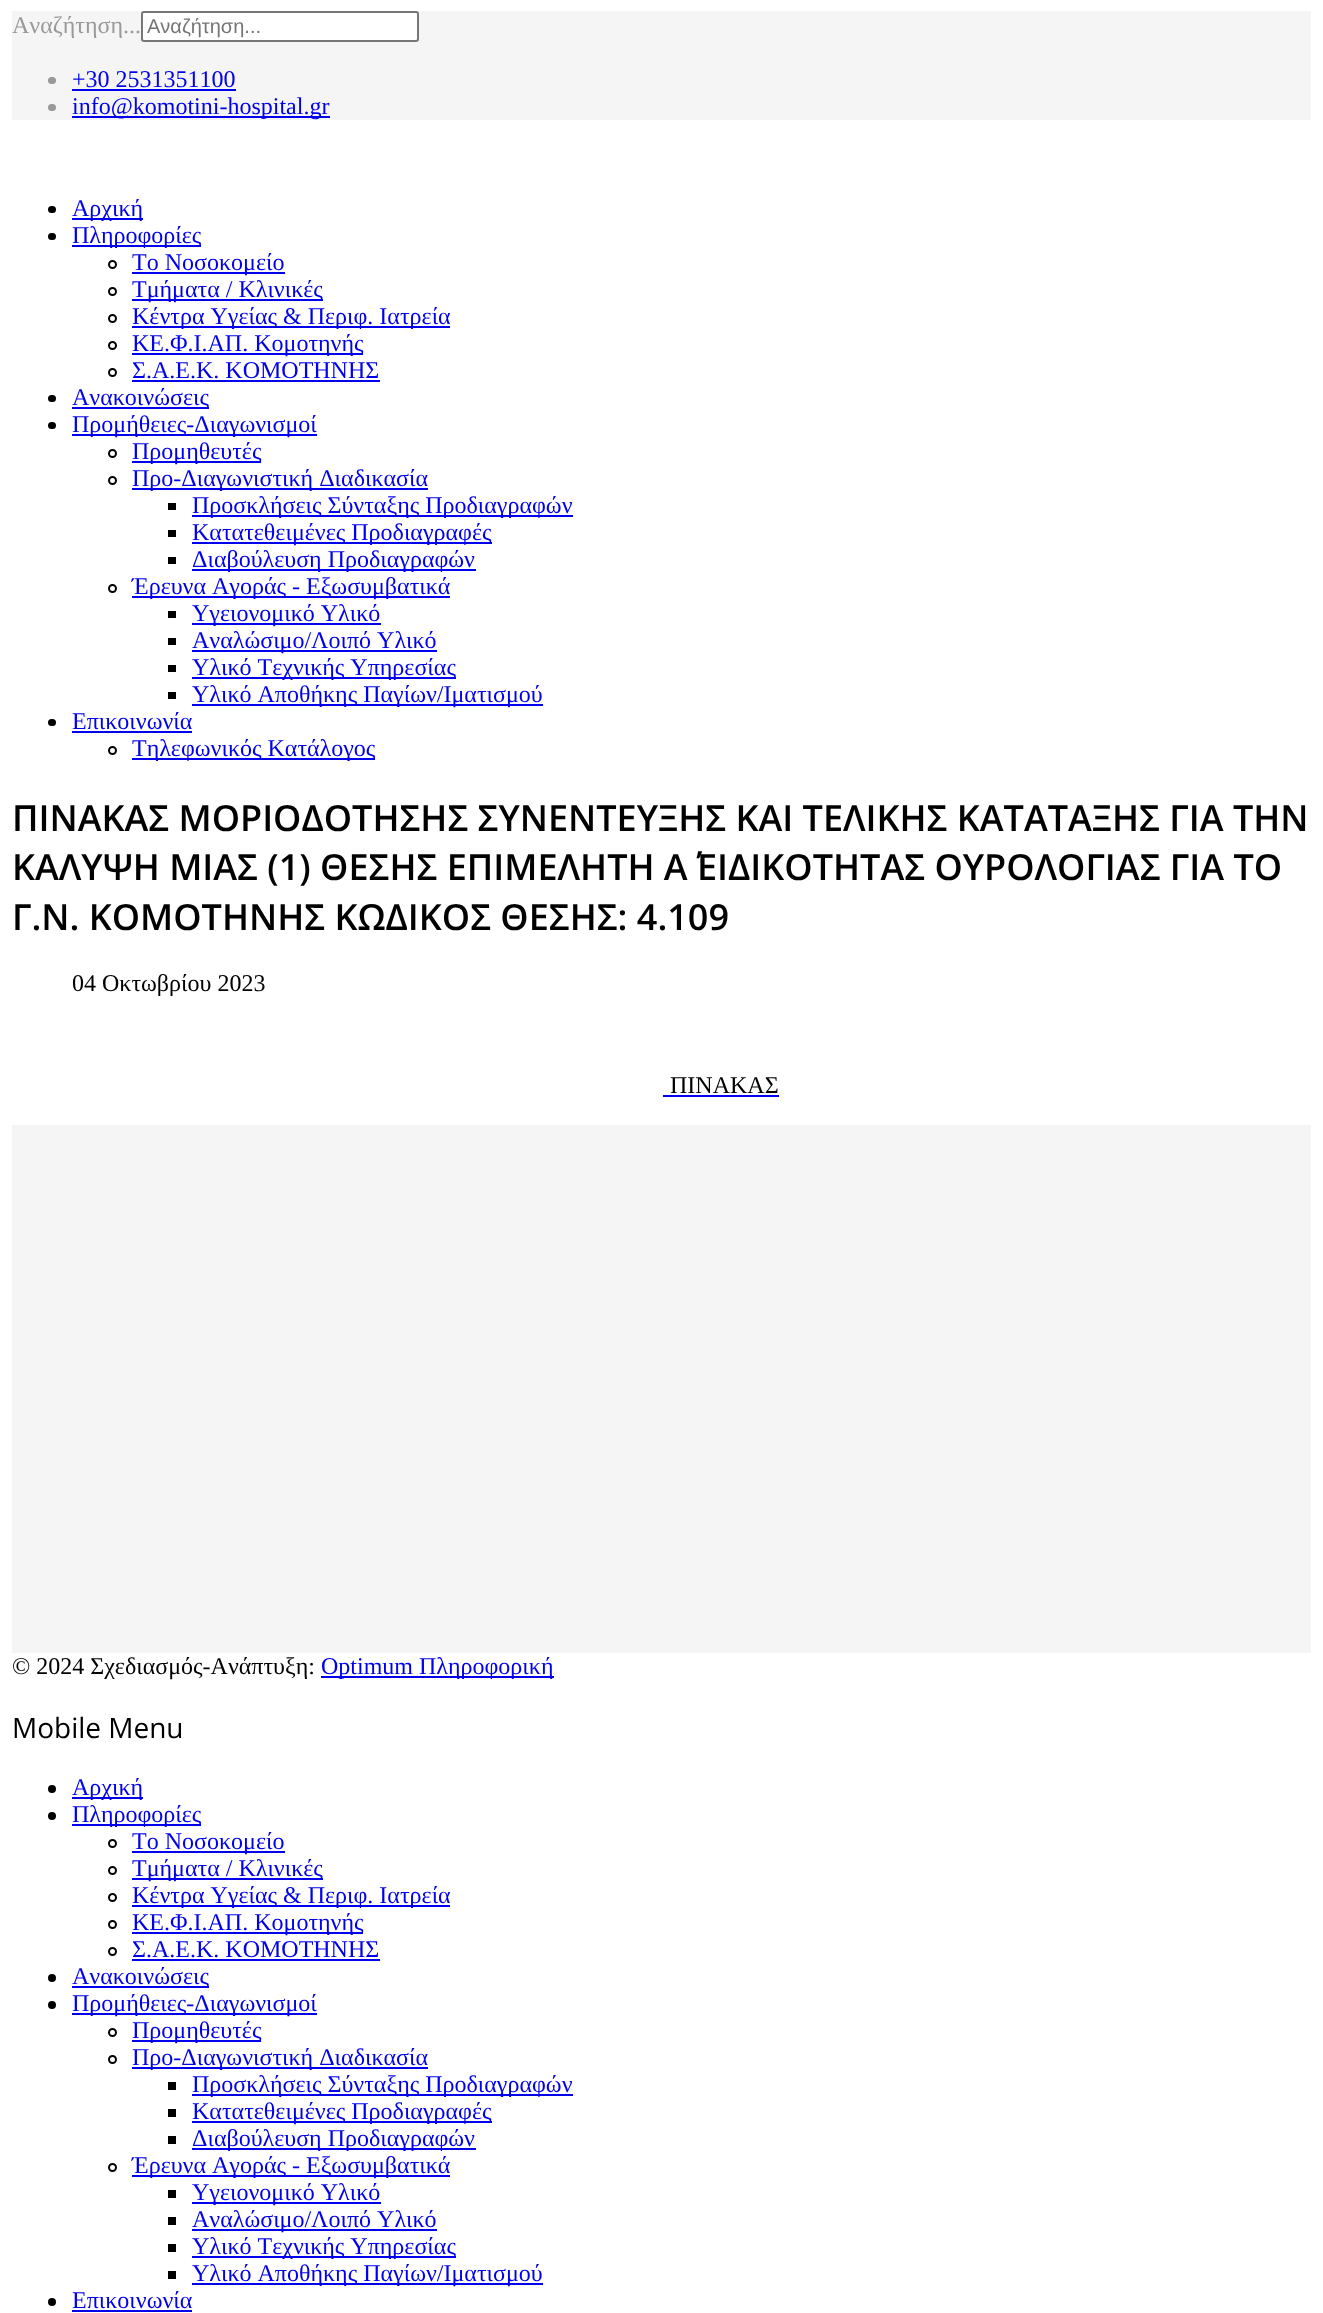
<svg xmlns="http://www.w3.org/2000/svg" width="1323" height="2313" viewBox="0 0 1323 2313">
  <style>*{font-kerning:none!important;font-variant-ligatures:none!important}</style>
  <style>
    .t1 { font: 24px Liberation Serif; fill: #999; }
    .t2 { font: 20px Liberation Sans; fill: #757575; }
    .t3 { font: 24px Liberation Serif; fill: #00e; }
    .t4 { font: 600 36px Open Sans; fill: #000; }
    .t5 { font: 24px Liberation Serif; fill: #000; }
    .t6 { font: 28px Open Sans; fill: #000; }
  </style>
  <rect width="100%" height="100%" fill="#fff"/>
  <rect x="12" y="11" width="1299" height="109" fill="#f5f5f5"/>
  <text x="12" y="33" class="t1">Αναζήτηση...</text>
  <rect x="142" y="12" width="276" height="29" rx="2" fill="#fff" stroke="#767676" stroke-width="2"/>
  <text x="147" y="33" class="t2">Αναζήτηση...</text>
  <rect x="48" y="77" width="8" height="7" rx="3.5" fill="#999"/>
  <text x="72" y="87" class="t3">+30 2531351100</text>
  <rect x="72" y="89" width="164" height="2" fill="#00e"/>
  <rect x="48" y="104" width="8" height="7" rx="3.5" fill="#999"/>
  <rect x="72" y="116" width="258" height="2" fill="#00e"/>
  <text x="72" y="114" class="t3">info@komotini-hospital.gr</text>
  <rect x="48" y="206" width="8" height="7" rx="3.5" fill="#000"/>
  <rect x="72" y="218" width="71" height="2" fill="#00e"/>
  <text x="72" y="216" class="t3">Αρχική</text>
  <rect x="48" y="233" width="8" height="7" rx="3.5" fill="#000"/>
  <rect x="72" y="245" width="129" height="2" fill="#00e"/>
  <text x="72" y="243" class="t3">Πληροφορίες</text>
  <circle cx="112.5" cy="264.5" r="3.5" fill="none" stroke="#000" stroke-width="2"/>
  <rect x="132" y="272" width="153" height="2" fill="#00e"/>
  <text x="132" y="270" class="t3">Το Νοσοκομείο</text>
  <circle cx="112.5" cy="291.5" r="3.5" fill="none" stroke="#000" stroke-width="2"/>
  <rect x="132" y="299" width="191" height="2" fill="#00e"/>
  <text x="132" y="297" class="t3">Τμήματα / Κλινικές</text>
  <circle cx="112.5" cy="318.5" r="3.5" fill="none" stroke="#000" stroke-width="2"/>
  <rect x="132" y="326" width="318" height="2" fill="#00e"/>
  <text x="132" y="324" class="t3">Κέντρα Υγείας &amp; Περιφ. Ιατρεία</text>
  <circle cx="112.5" cy="345.5" r="3.5" fill="none" stroke="#000" stroke-width="2"/>
  <rect x="132" y="353" width="231" height="2" fill="#00e"/>
  <text x="132" y="351" class="t3">ΚΕ.Φ.Ι.ΑΠ. Κομοτηνής</text>
  <circle cx="112.5" cy="372.5" r="3.5" fill="none" stroke="#000" stroke-width="2"/>
  <text x="132" y="378" class="t3">Σ.Α.Ε.Κ. ΚΟΜΟΤΗΝΗΣ</text>
  <rect x="132" y="380" width="248" height="2" fill="#00e"/>
  <rect x="48" y="395" width="8" height="7" rx="3.5" fill="#000"/>
  <rect x="72" y="407" width="137" height="2" fill="#00e"/>
  <text x="72" y="405" class="t3">Ανακοινώσεις</text>
  <rect x="48" y="422" width="8" height="7" rx="3.5" fill="#000"/>
  <rect x="72" y="434" width="245" height="2" fill="#00e"/>
  <text x="72" y="432" class="t3">Προμήθειες-Διαγωνισμοί</text>
  <circle cx="112.5" cy="453.5" r="3.5" fill="none" stroke="#000" stroke-width="2"/>
  <rect x="132" y="461" width="129" height="2" fill="#00e"/>
  <text x="132" y="459" class="t3">Προμηθευτές</text>
  <circle cx="112.5" cy="480.5" r="3.5" fill="none" stroke="#000" stroke-width="2"/>
  <rect x="132" y="488" width="296" height="2" fill="#00e"/>
  <text x="132" y="486" class="t3">Προ-Διαγωνιστική Διαδικασία</text>
  <rect x="168" y="503" width="8" height="7" fill="#000"/>
  <rect x="192" y="515" width="381" height="2" fill="#00e"/>
  <text x="192" y="513" class="t3">Προσκλήσεις Σύνταξης Προδιαγραφών</text>
  <rect x="168" y="530" width="8" height="7" fill="#000"/>
  <rect x="192" y="542" width="300" height="2" fill="#00e"/>
  <text x="192" y="540" class="t3">Κατατεθειμένες Προδιαγραφές</text>
  <rect x="168" y="557" width="8" height="7" fill="#000"/>
  <rect x="192" y="569" width="284" height="2" fill="#00e"/>
  <text x="192" y="567" class="t3">Διαβούλευση Προδιαγραφών</text>
  <circle cx="112.5" cy="588.5" r="3.5" fill="none" stroke="#000" stroke-width="2"/>
  <rect x="132" y="596" width="318" height="2" fill="#00e"/>
  <text x="132" y="594" class="t3">Έρευνα Αγοράς - Εξωσυμβατικά</text>
  <rect x="168" y="611" width="8" height="7" fill="#000"/>
  <rect x="192" y="623" width="189" height="2" fill="#00e"/>
  <text x="192" y="621" class="t3">Υγειονομικό Υλικό</text>
  <rect x="168" y="638" width="8" height="7" fill="#000"/>
  <rect x="192" y="650" width="245" height="2" fill="#00e"/>
  <text x="192" y="648" class="t3">Αναλώσιμο/Λοιπό Υλικό</text>
  <rect x="168" y="665" width="8" height="7" fill="#000"/>
  <rect x="192" y="677" width="264" height="2" fill="#00e"/>
  <text x="192" y="675" class="t3">Υλικό Tεχνικής Yπηρεσίας</text>
  <rect x="168" y="692" width="8" height="7" fill="#000"/>
  <rect x="192" y="704" width="351" height="2" fill="#00e"/>
  <text x="192" y="702" class="t3">Υλικό Αποθήκης Παγίων/Ιματισμού</text>
  <rect x="48" y="719" width="8" height="7" rx="3.5" fill="#000"/>
  <text x="72" y="729" class="t3">Επικοινωνία</text>
  <rect x="72" y="731" width="120" height="2" fill="#00e"/>
  <circle cx="112.5" cy="750.5" r="3.5" fill="none" stroke="#000" stroke-width="2"/>
  <rect x="132" y="758" width="243" height="2" fill="#00e"/>
  <text x="132" y="756" class="t3">Τηλεφωνικός Κατάλογος</text>
  <text x="12" y="831" class="t4">ΠΙΝΑΚΑΣ ΜΟΡΙΟΔΟΤΗΣΗΣ ΣΥΝΕΝΤΕΥΞΗΣ ΚΑΙ ΤΕΛΙΚΗΣ ΚΑΤΑΤΑΞΗΣ ΓΙΑ ΤΗΝ</text>
  <text x="12" y="880" class="t4">ΚΑΛΥΨΗ ΜΙΑΣ (1) ΘΕΣΗΣ ΕΠΙΜΕΛΗΤΗ Α΄ ΕΙΔΙΚΟΤΗΤΑΣ ΟΥΡΟΛΟΓΙΑΣ ΓΙΑ ΤΟ</text>
  <text x="12" y="930" class="t4">Γ.Ν. ΚΟΜΟΤΗΝΗΣ ΚΩΔΙΚΟΣ ΘΕΣΗΣ: 4.109</text>
  <text x="72" y="991" class="t5">04 Οκτωβρίου 2023</text>
  <text x="670" y="1093" class="t5">ΠΙΝΑΚΑΣ</text>
  <rect x="663" y="1095" width="116" height="2" fill="#00e"/>
  <rect x="12" y="1125" width="1299" height="528" fill="#f5f5f5"/>
  <text x="12" y="1674" class="t5">© 2024 Σχεδιασμός-Ανάπτυξη:</text>
  <rect x="321" y="1676" width="233" height="2" fill="#00e"/>
  <text x="321" y="1674" class="t3">Optimum Πληροφορική</text>
  <text x="12" y="1738" class="t6">Mοbile Menu</text>
  <circle cx="52" cy="1789" r="4" fill="#000"/>
  <rect x="72" y="1797" width="71" height="2" fill="#00e"/>
  <text x="72" y="1795" class="t3">Αρχική</text>
  <circle cx="52" cy="1816" r="4" fill="#000"/>
  <rect x="72" y="1824" width="129" height="2" fill="#00e"/>
  <text x="72" y="1822" class="t3">Πληροφορίες</text>
  <circle cx="112.5" cy="1843.5" r="3.5" fill="none" stroke="#000" stroke-width="2"/>
  <rect x="132" y="1851" width="153" height="2" fill="#00e"/>
  <text x="132" y="1849" class="t3">Το Νοσοκομείο</text>
  <circle cx="112.5" cy="1870.5" r="3.5" fill="none" stroke="#000" stroke-width="2"/>
  <rect x="132" y="1878" width="191" height="2" fill="#00e"/>
  <text x="132" y="1876" class="t3">Τμήματα / Κλινικές</text>
  <circle cx="112.5" cy="1897.5" r="3.5" fill="none" stroke="#000" stroke-width="2"/>
  <rect x="132" y="1905" width="318" height="2" fill="#00e"/>
  <text x="132" y="1903" class="t3">Κέντρα Υγείας &amp; Περιφ. Ιατρεία</text>
  <circle cx="112.5" cy="1924.5" r="3.5" fill="none" stroke="#000" stroke-width="2"/>
  <rect x="132" y="1932" width="231" height="2" fill="#00e"/>
  <text x="132" y="1930" class="t3">ΚΕ.Φ.Ι.ΑΠ. Κομοτηνής</text>
  <circle cx="112.5" cy="1951.5" r="3.5" fill="none" stroke="#000" stroke-width="2"/>
  <text x="132" y="1957" class="t3">Σ.Α.Ε.Κ. ΚΟΜΟΤΗΝΗΣ</text>
  <rect x="132" y="1959" width="248" height="2" fill="#00e"/>
  <circle cx="52" cy="1978" r="4" fill="#000"/>
  <rect x="72" y="1986" width="137" height="2" fill="#00e"/>
  <text x="72" y="1984" class="t3">Ανακοινώσεις</text>
  <circle cx="52" cy="2005" r="4" fill="#000"/>
  <rect x="72" y="2013" width="245" height="2" fill="#00e"/>
  <text x="72" y="2011" class="t3">Προμήθειες-Διαγωνισμοί</text>
  <circle cx="112.5" cy="2032.5" r="3.5" fill="none" stroke="#000" stroke-width="2"/>
  <rect x="132" y="2040" width="129" height="2" fill="#00e"/>
  <text x="132" y="2038" class="t3">Προμηθευτές</text>
  <circle cx="112.5" cy="2059.5" r="3.5" fill="none" stroke="#000" stroke-width="2"/>
  <rect x="132" y="2067" width="296" height="2" fill="#00e"/>
  <text x="132" y="2065" class="t3">Προ-Διαγωνιστική Διαδικασία</text>
  <rect x="168" y="2082" width="8" height="8" fill="#000"/>
  <rect x="192" y="2094" width="381" height="2" fill="#00e"/>
  <text x="192" y="2092" class="t3">Προσκλήσεις Σύνταξης Προδιαγραφών</text>
  <rect x="168" y="2109" width="8" height="8" fill="#000"/>
  <rect x="192" y="2121" width="300" height="2" fill="#00e"/>
  <text x="192" y="2119" class="t3">Κατατεθειμένες Προδιαγραφές</text>
  <rect x="168" y="2136" width="8" height="8" fill="#000"/>
  <rect x="192" y="2148" width="284" height="2" fill="#00e"/>
  <text x="192" y="2146" class="t3">Διαβούλευση Προδιαγραφών</text>
  <circle cx="112.5" cy="2167.5" r="3.5" fill="none" stroke="#000" stroke-width="2"/>
  <rect x="132" y="2175" width="318" height="2" fill="#00e"/>
  <text x="132" y="2173" class="t3">Έρευνα Αγοράς - Εξωσυμβατικά</text>
  <rect x="168" y="2190" width="8" height="8" fill="#000"/>
  <rect x="192" y="2202" width="189" height="2" fill="#00e"/>
  <text x="192" y="2200" class="t3">Υγειονομικό Υλικό</text>
  <rect x="168" y="2217" width="8" height="8" fill="#000"/>
  <rect x="192" y="2229" width="245" height="2" fill="#00e"/>
  <text x="192" y="2227" class="t3">Αναλώσιμο/Λοιπό Υλικό</text>
  <rect x="168" y="2244" width="8" height="8" fill="#000"/>
  <rect x="192" y="2256" width="264" height="2" fill="#00e"/>
  <text x="192" y="2254" class="t3">Υλικό Tεχνικής Yπηρεσίας</text>
  <rect x="168" y="2271" width="8" height="8" fill="#000"/>
  <rect x="192" y="2283" width="351" height="2" fill="#00e"/>
  <text x="192" y="2281" class="t3">Υλικό Αποθήκης Παγίων/Ιματισμού</text>
  <circle cx="52" cy="2302" r="4" fill="#000"/>
  <text x="72" y="2308" class="t3">Επικοινωνία</text>
  <rect x="72" y="2310" width="120" height="2" fill="#00e"/>
</svg>
